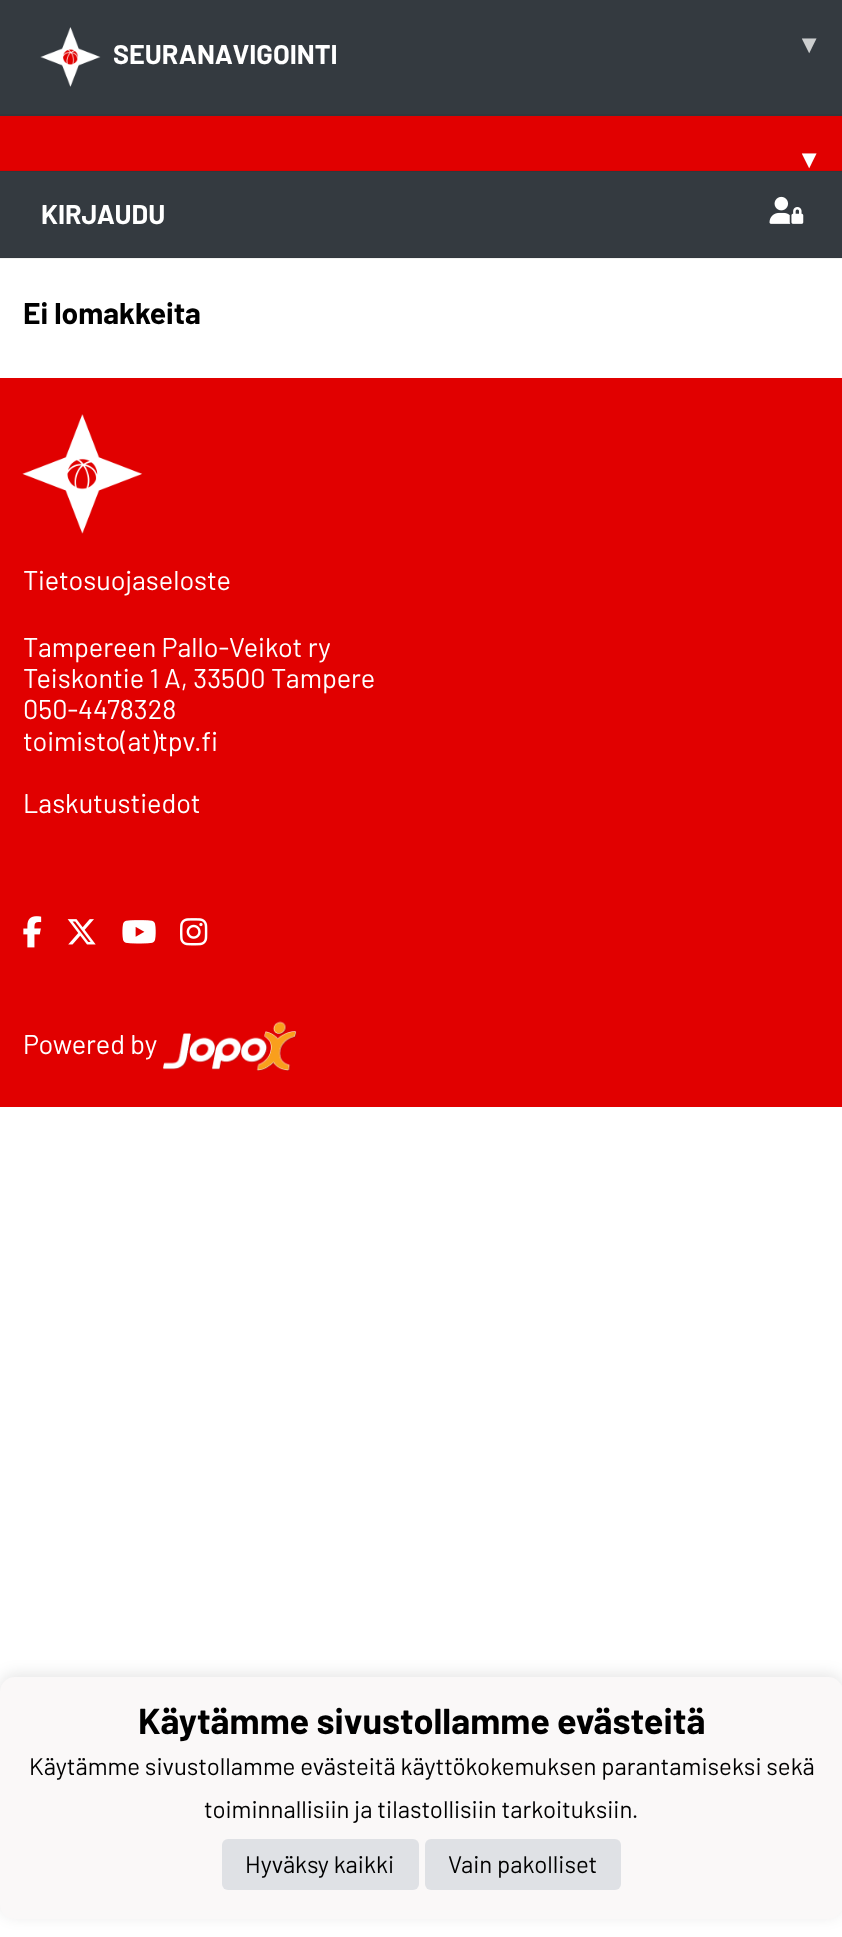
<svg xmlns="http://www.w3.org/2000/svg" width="842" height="1937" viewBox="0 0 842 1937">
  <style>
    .t1 { font: bold 27px Barlow; fill: #fff; }
    .t2 { font: bold 27px DejaVu Sans; fill: #cccecf; }
    .t3 { font: bold 27px DejaVu Sans; fill: #fff; }
    .t4 { font: bold 30px Barlow; fill: #000; }
    .t5 { font: 27px Barlow; fill: #fff; }
    .t6 { font: bold 36px Barlow; fill: #000; }
    .t7 { font: 24px Barlow; fill: #000; }
  </style>
  <rect width="100%" height="100%" fill="#fff"/>
  <rect x="0" y="258" width="842" height="1" fill="#f2f2f2"/>
  <rect x="0" y="0" width="842" height="114" fill="#343a40"/>
  <rect x="0" y="114" width="842" height="2" fill="#31373d"/>
  <image x="40" y="27" width="61" height="60" href="images/1.png"/>
  <text x="113" y="64" class="t1">SEURANAVIGOINTI</text>
  <text x="802" y="53" class="t2">▾</text>
  <rect x="0" y="116" width="842" height="54" fill="#e10000"/>
  <rect x="0" y="170" width="842" height="1" fill="#d60000"/>
  <text x="802" y="168" class="t3">▾</text>
  <rect x="0" y="172" width="842" height="85" fill="#343a40"/>
  <rect x="0" y="257" width="842" height="1" fill="#31373d"/>
  <rect x="0" y="171" width="842" height="1" fill="#31373d"/>
  <text x="41" y="224" class="t1">KIRJAUDU</text>
  <image x="769" y="196" width="35" height="28" href="images/2.png"/>
  <text x="23" y="324" class="t4">Ei lomakkeita</text>
  <rect x="0" y="378" width="842" height="729" fill="#e10000"/>
  <image x="22" y="414" width="121" height="120" href="images/3.png"/>
  <text x="23" y="590" class="t5">Tietosuojaseloste</text>
  <text x="23" y="657" class="t5">Tampereen Pallo-Veikot ry</text>
  <text x="23" y="688" class="t5">Teiskontie 1 A, 33500 Tampere</text>
  <text x="23" y="719" class="t5">050-4478328</text>
  <text x="23" y="751" class="t5">toimisto(at)tpv.fi</text>
  <text x="23" y="813" class="t5">Laskutustiedot</text>
  <image x="23" y="916" width="19" height="32" href="images/4.png"/>
  <image x="67" y="919" width="29" height="26" href="images/5.png"/>
  <image x="122" y="920" width="34" height="24" href="images/6.png"/>
  <image x="180" y="918" width="28" height="28" href="images/7.png"/>
  <text x="23" y="1054" class="t5">Powered by</text>
  <image x="163" y="1021" width="134" height="50" href="images/8.png"/>
  <rect x="0" y="1674" width="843" height="242" rx="15" fill="#0000001a" filter="blur(7.5px)"/>
  <rect x="0" y="1677" width="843" height="242" rx="15" fill="#faf8f8"/>
  <text x="138" y="1734" class="t6">Käytämme sivustollamme evästeitä</text>
  <text x="29" y="1775" class="t7">Käytämme sivustollamme evästeitä käyttökokemuksen parantamiseksi sekä</text>
  <text x="204" y="1818" class="t7">toiminnallisiin ja tilastollisiin tarkoituksiin.</text>
  <rect x="222" y="1839" width="197" height="51" rx="6" fill="#dfe1e5"/>
  <text x="245" y="1873" class="t7">Hyväksy kaikki</text>
  <rect x="425" y="1839" width="196" height="51" rx="6" fill="#dfe1e5"/>
  <text x="448" y="1873" class="t7">Vain pakolliset</text>
</svg>
